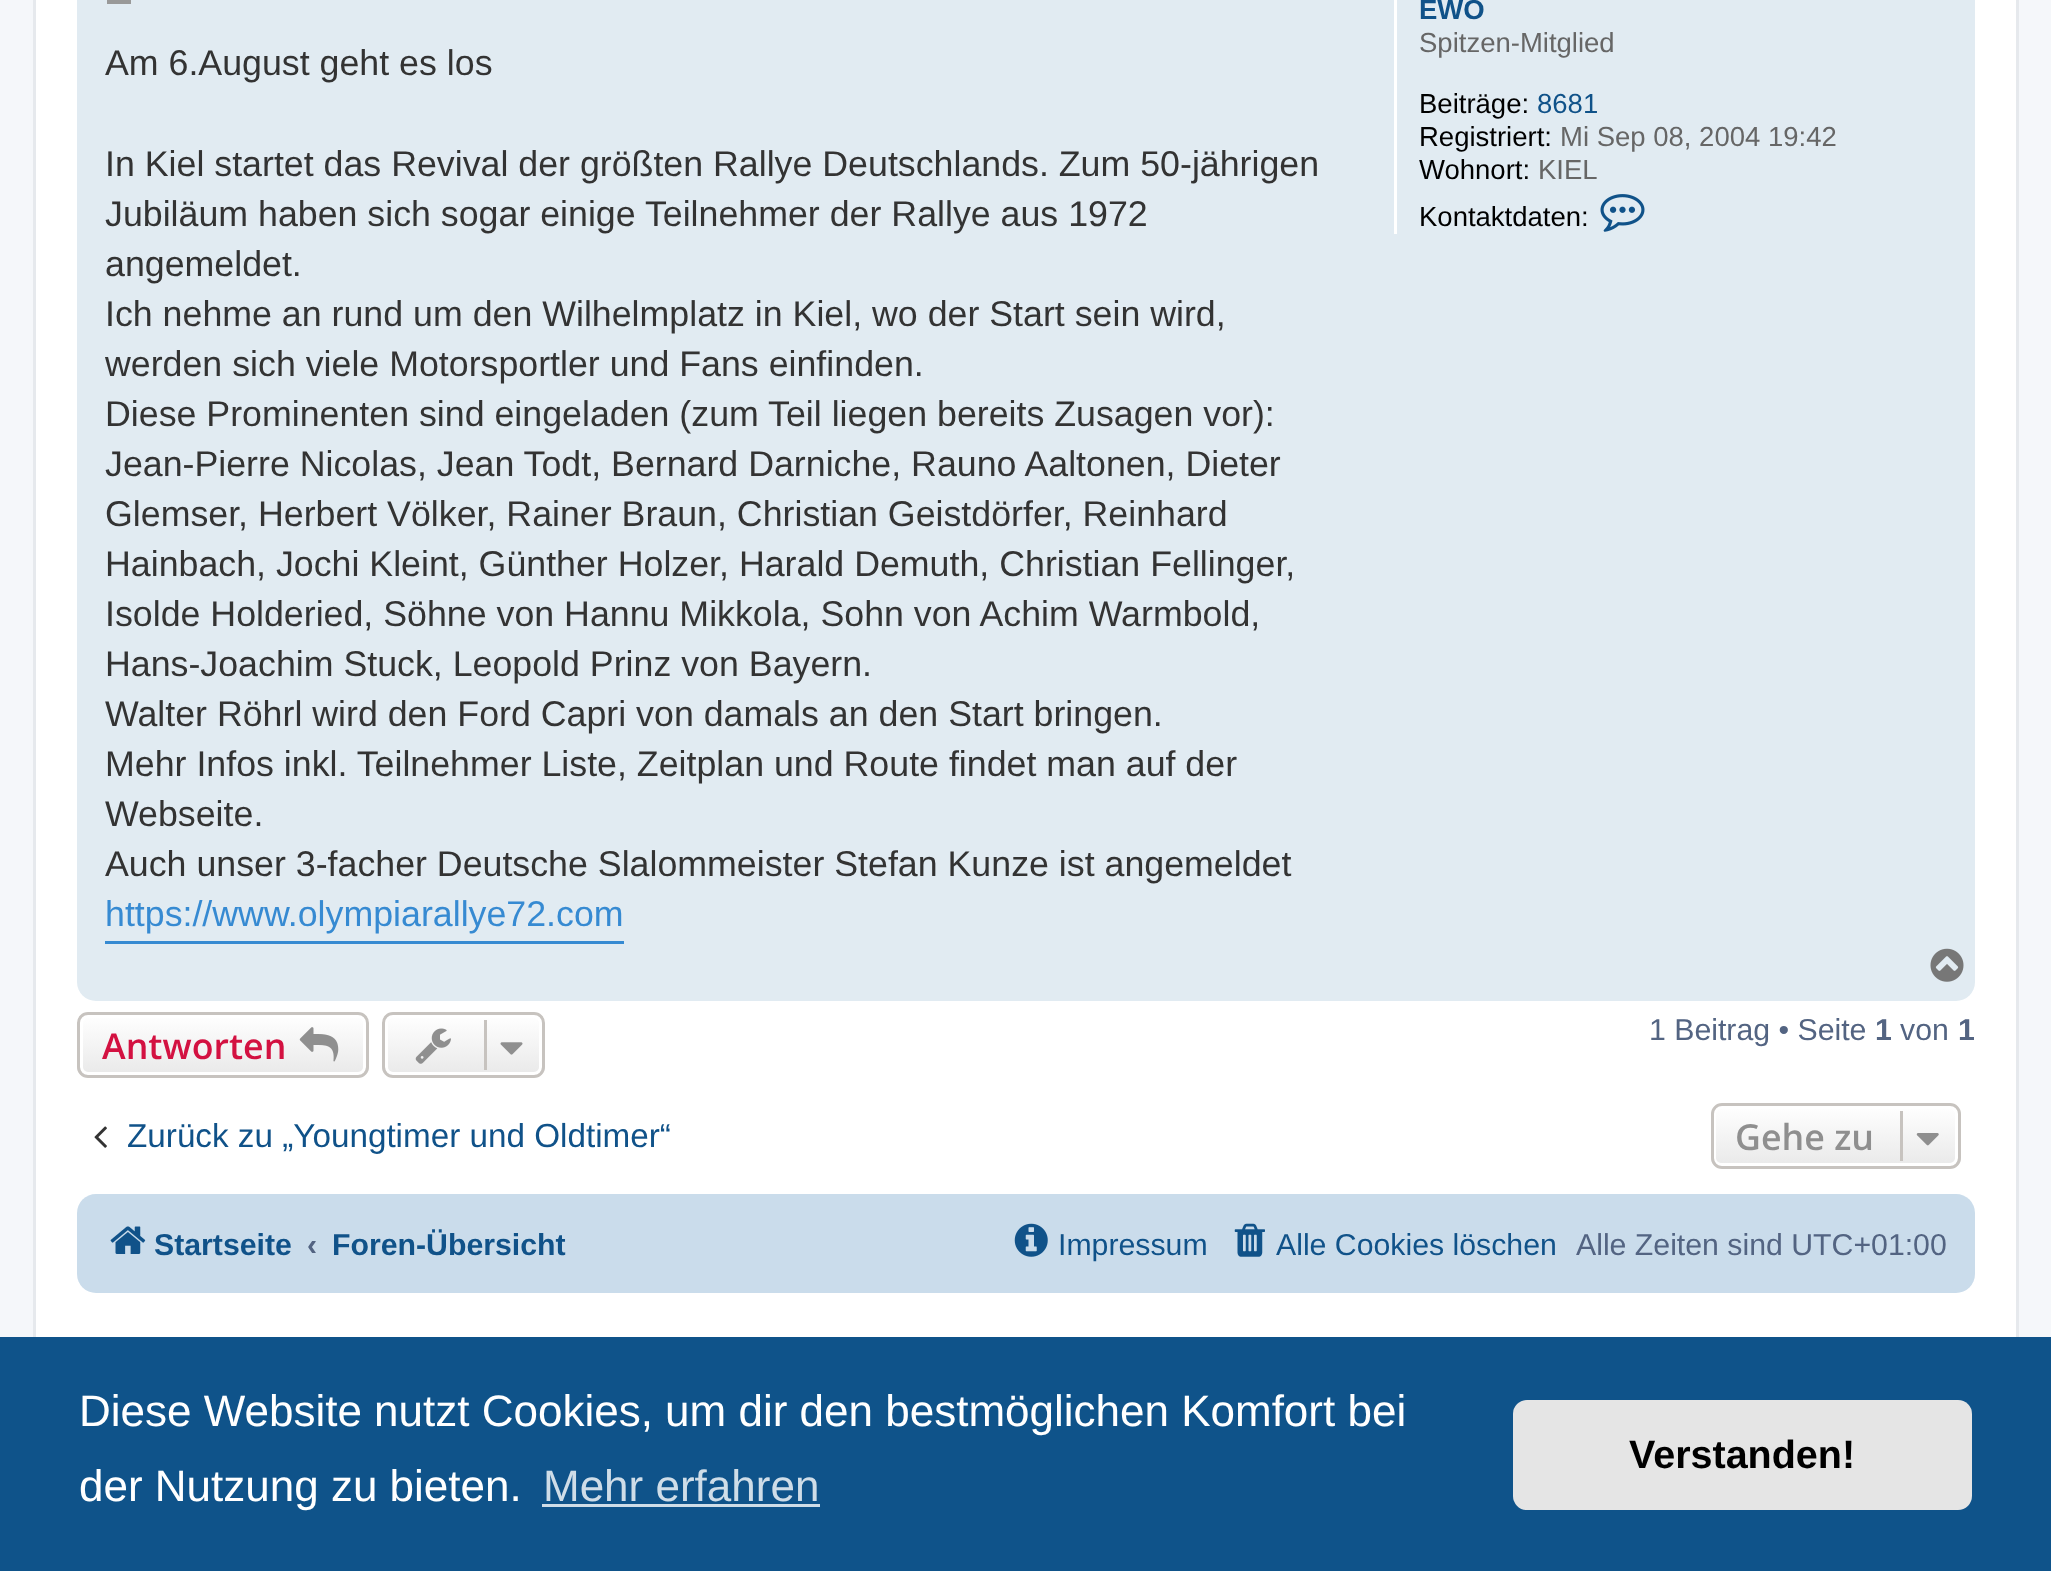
<svg xmlns="http://www.w3.org/2000/svg" width="2051" height="1571" viewBox="0 0 2051 1571">
  <style>
    .t1 { font: 35.75px Liberation Sans; fill: #333; }
    .t2 { font: 35.75px Liberation Sans; fill: #368ad2; }
    .t3 { font: bold 27.5px Liberation Sans; fill: #105289; }
    .t4 { font: 27.5px Liberation Sans; fill: #666; }
    .t5 { font: 27.5px Liberation Sans; fill: #000; }
    .t6 { font: 27.5px Liberation Sans; fill: #105289; }
    .t7 { font: 600 35.75px Open Sans; fill: #d31141; }
    .t8 { font: 30.25px Liberation Sans; fill: #536482; }
    .t9 { font: bold 30.25px Liberation Sans; fill: #536482; }
    .t10 { font: 33.25px Liberation Sans; fill: #105289; }
    .t11 { font: 600 35.75px Open Sans; fill: #8f8f8f; }
    .t12 { font: bold 30.25px Liberation Sans; fill: #105289; }
    .t13 { font: 30.25px Liberation Sans; fill: #105289; }
    .t14 { font: 44px Liberation Sans; fill: #fff; }
    .t15 { font: 44px Liberation Sans; fill: #cfdde8; }
    .t16 { font: bold 39.5px Liberation Sans; fill: #000; }
  </style>
  <defs>
    <clipPath id="clip1"><rect x="77" y="1012" width="292" height="66" rx="11"/></clipPath>
    <linearGradient id="g1" gradientUnits="userSpaceOnUse" x1="223" y1="1015" x2="223" y2="1075"><stop offset="0" stop-color="#fff"/><stop offset="1" stop-color="#e9e9e9"/></linearGradient>
    <clipPath id="clip2"><rect x="382" y="1012" width="163" height="66" rx="11"/></clipPath>
    <linearGradient id="g2" gradientUnits="userSpaceOnUse" x1="463" y1="1015" x2="463" y2="1075"><stop offset="0" stop-color="#fff"/><stop offset="1" stop-color="#e9e9e9"/></linearGradient>
    <clipPath id="clip3"><rect x="1711" y="1103" width="250" height="66" rx="11"/></clipPath>
    <linearGradient id="g3" gradientUnits="userSpaceOnUse" x1="1836" y1="1106" x2="1836" y2="1166"><stop offset="0" stop-color="#fff"/><stop offset="1" stop-color="#e9e9e9"/></linearGradient>
  </defs>
  <rect width="100%" height="100%" fill="#f5f7fa"/>
  <rect x="36" y="0" width="1980" height="1337" fill="#fff"/>
  <rect x="34.5" y="-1.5" width="1983" height="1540" fill="none" stroke="#e6e9ed" stroke-width="3"/>
  <rect x="77" y="-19" width="1898" height="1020" rx="19" fill="#e1ebf2"/>
  <rect x="107" y="0" width="24" height="4" fill="#999"/>
  <text x="105" y="75" class="t1">Am 6.August geht es los</text>
  <text x="105" y="176" class="t1">In Kiel startet das Revival der größten Rallye Deutschlands. Zum 50-jährigen</text>
  <text x="105" y="226" class="t1">Jubiläum haben sich sogar einige Teilnehmer der Rallye aus 1972</text>
  <text x="105" y="276" class="t1">angemeldet.</text>
  <text x="105" y="326" class="t1">Ich nehme an rund um den Wilhelmplatz in Kiel, wo der Start sein wird,</text>
  <text x="105" y="376" class="t1">werden sich viele Motorsportler und Fans einfinden.</text>
  <text x="105" y="426" class="t1">Diese Prominenten sind eingeladen (zum Teil liegen bereits Zusagen vor):</text>
  <text x="105" y="476" class="t1">Jean-Pierre Nicolas, Jean Todt, Bernard Darniche, Rauno Aaltonen, Dieter</text>
  <text x="105" y="526" class="t1">Glemser, Herbert Völker, Rainer Braun, Christian Geistdörfer, Reinhard</text>
  <text x="105" y="576" class="t1">Hainbach, Jochi Kleint, Günther Holzer, Harald Demuth, Christian Fellinger,</text>
  <text x="105" y="626" class="t1">Isolde Holderied, Söhne von Hannu Mikkola, Sohn von Achim Warmbold,</text>
  <text x="105" y="676" class="t1">Hans-Joachim Stuck, Leopold Prinz von Bayern.</text>
  <text x="105" y="726" class="t1">Walter Röhrl wird den Ford Capri von damals an den Start bringen.</text>
  <text x="105" y="776" class="t1">Mehr Infos inkl. Teilnehmer Liste, Zeitplan und Route findet man auf der</text>
  <text x="105" y="826" class="t1">Webseite.</text>
  <text x="105" y="876" class="t1">Auch unser 3-facher Deutsche Slalommeister Stefan Kunze ist angemeldet</text>
  <rect x="105" y="941" width="519" height="3" fill="#368ad2"/>
  <text x="105" y="926" class="t2">https://www.olympiarallye72.com</text>
  <rect x="1394" y="0" width="3" height="234" fill="#fff"/>
  <text x="1419" y="19" class="t3">EWO</text>
  <text x="1419" y="52" class="t4">Spitzen-Mitglied</text>
  <text x="1419" y="113" class="t5">Beiträge:</text>
  <text x="1537" y="113" class="t6">8681</text>
  <text x="1419" y="146" class="t5">Registriert:</text>
  <text x="1560" y="146" class="t4">Mi Sep 08, 2004 19:42</text>
  <text x="1419" y="179" class="t5">Wohnort:</text>
  <text x="1538" y="179" class="t4">KIEL</text>
  <text x="1419" y="226" class="t5">Kontaktdaten:</text>
  <image x="1600" y="194" width="45" height="38" href="images/1.png"/>
  <image x="1930" y="948" width="34" height="34" href="images/2.png"/>
  <g clip-path="url(#clip1)">
    <rect x="77" y="1015" width="292" height="60" fill="url(#g1)"/>
  </g>
  <rect x="81.5" y="1016.5" width="283" height="57" rx="6.5" fill="none" stroke="#fff" stroke-width="3"/>
  <rect x="78.5" y="1013.5" width="289" height="63" rx="9.5" fill="none" stroke="#c7c3bf" stroke-width="3"/>
  <text x="102" y="1059" class="t7">Antworten</text>
  <image x="299" y="1027" width="40" height="35" href="images/3.png"/>
  <g clip-path="url(#clip2)">
    <rect x="382" y="1015" width="163" height="60" fill="url(#g2)"/>
  </g>
  <rect x="386.5" y="1016.5" width="154" height="57" rx="6.5" fill="none" stroke="#fff" stroke-width="3"/>
  <rect x="383.5" y="1013.5" width="160" height="63" rx="9.5" fill="none" stroke="#c7c3bf" stroke-width="3"/>
  <image x="415" y="1028" width="36" height="36" href="images/4.png"/>
  <rect x="484" y="1020" width="3" height="50" fill="#c7c3bf"/>
  <image x="500" y="1042" width="23" height="13" href="images/5.png"/>
  <text x="1649" y="1040" class="t8">1 Beitrag • Seite</text>
  <text x="1875" y="1040" class="t9">1</text>
  <text x="1900" y="1040" class="t8">von</text>
  <text x="1958" y="1040" class="t9">1</text>
  <image x="94" y="1126" width="13" height="22" href="images/6.png"/>
  <text x="127" y="1147" class="t10">Zurück zu „Youngtimer und Oldtimer“</text>
  <g clip-path="url(#clip3)">
    <rect x="1711" y="1106" width="250" height="60" fill="url(#g3)"/>
  </g>
  <rect x="1714.5" y="1107.5" width="242" height="57" rx="6.5" fill="none" stroke="#fff" stroke-width="3"/>
  <rect x="1712.5" y="1104.5" width="247" height="63" rx="9.5" fill="none" stroke="#c7c3bf" stroke-width="3"/>
  <text x="1735" y="1150" class="t11">Gehe zu</text>
  <rect x="1900" y="1111" width="3" height="50" fill="#c7c3bf"/>
  <image x="1916" y="1133" width="23" height="13" href="images/7.png"/>
  <rect x="77" y="1194" width="1898" height="99" rx="19" fill="#cadceb"/>
  <image x="110" y="1226" width="36" height="28" href="images/8.png"/>
  <text x="154" y="1255" class="t12">Startseite</text>
  <text x="307" y="1255" class="t9">‹</text>
  <text x="332" y="1255" class="t12">Foren-Übersicht</text>
  <image x="1014" y="1223" width="34" height="34" href="images/9.png"/>
  <text x="1058" y="1255" class="t13">Impressum</text>
  <image x="1234" y="1223" width="31" height="34" href="images/10.png"/>
  <text x="1276" y="1255" class="t13">Alle Cookies löschen</text>
  <text x="1576" y="1255" class="t8">Alle Zeiten sind UTC+01:00</text>
  <rect x="0" y="1337" width="2051" height="234" fill="#0f538a"/>
  <text x="79" y="1426" class="t14">Diese Website nutzt Cookies, um dir den bestmöglichen Komfort bei</text>
  <text x="79" y="1501" class="t14">der Nutzung zu bieten.</text>
  <text x="543" y="1501" class="t15">Mehr erfahren</text>
  <rect x="542" y="1504" width="278" height="3" fill="#cfdde8"/>
  <rect x="1513" y="1400" width="459" height="110" rx="14" fill="#e5e5e5"/>
  <text x="1629" y="1468" class="t16">Verstanden!</text>
</svg>
